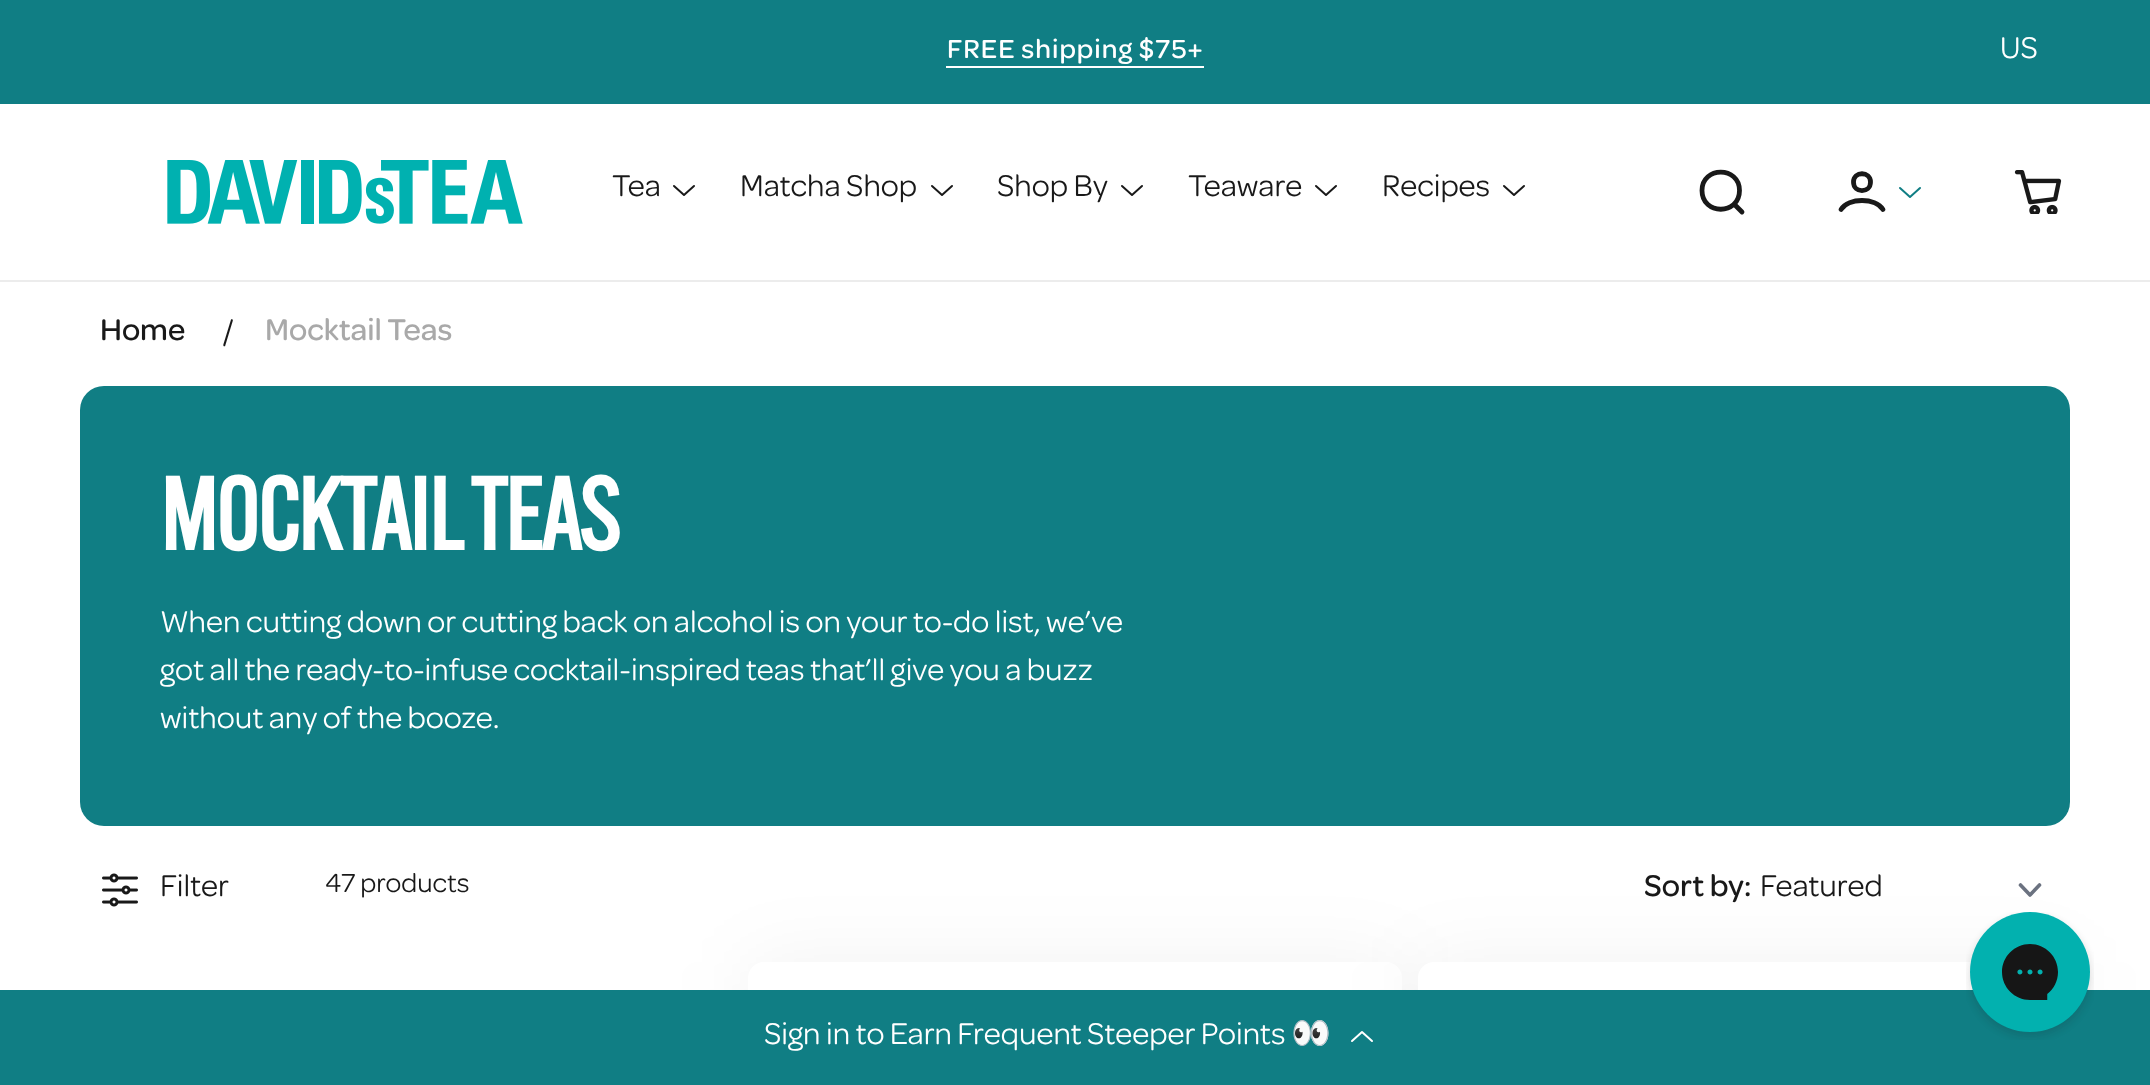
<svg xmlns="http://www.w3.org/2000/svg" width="2150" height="1085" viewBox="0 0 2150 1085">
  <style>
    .t1 { font: 500 28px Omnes; letter-spacing: 1px; fill: #fff; }
    .t2 { font: 32px Omnes; fill: #fff; }
    .t3 { font: 32px Omnes; fill: #191919; }
    .t4 { font: 500 32px Omnes; fill: #191919; }
    .t5 { font: 500 32px Omnes; fill: #a9a9a9; }
    .t6 { font: bold 100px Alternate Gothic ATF; letter-spacing: -2px; fill: #fff; }
    .t7 { font: 28px Omnes; fill: #191919; }
    .t8 { font: 32px Noto Color Emoji; fill: #fff; }
  </style>
  <rect width="100%" height="100%" fill="#fff"/>
  <rect x="0" y="280" width="2150" height="2" fill="#ececec"/>
  <rect x="0" y="0" width="2150" height="104" fill="#107e84"/>
  <text x="947" y="58" class="t1">FREE shipping $75+</text>
  <rect x="946" y="66" width="258" height="2" fill="#fff"/>
  <text x="2000" y="58" class="t2">US</text>
  <image x="167" y="160" width="356" height="64" href="images/1.png"/>
  <text x="612" y="196" class="t3">Tea</text>
  <path d="M674 186L684 195L694 186" fill="none" stroke="#191919" stroke-width="2" stroke-linecap="round" stroke-linejoin="round"/>
  <text x="740" y="196" class="t3">Matcha Shop</text>
  <path d="M932 186L942 195L952 186" fill="none" stroke="#191919" stroke-width="2" stroke-linecap="round" stroke-linejoin="round"/>
  <text x="997" y="196" class="t3">Shop By</text>
  <path d="M1122 186L1132 195L1142 186" fill="none" stroke="#191919" stroke-width="2" stroke-linecap="round" stroke-linejoin="round"/>
  <text x="1188" y="196" class="t3">Teaware</text>
  <path d="M1316 186L1326 195L1336 186" fill="none" stroke="#191919" stroke-width="2" stroke-linecap="round" stroke-linejoin="round"/>
  <text x="1382" y="196" class="t3">Recipes</text>
  <path d="M1504 186L1514 195L1524 186" fill="none" stroke="#191919" stroke-width="2" stroke-linecap="round" stroke-linejoin="round"/>
  <path d="M1734 204L1742 212M1739.5 190.5C1739.5 215.5 1702 215.5 1702 190.5C1702 166 1739.5 166 1739.5 190.5Z" fill="none" stroke="#191919" stroke-width="4.8" stroke-linecap="round"/>
  <path d="M1841 209.5C1848.5 197.5 1875.5 197.5 1883 209.5M1870.5 182C1870.5 193.5 1853.5 193.5 1853.5 182C1853.5 171 1870.5 171 1870.5 182Z" fill="none" stroke="#191919" stroke-width="4.8" stroke-linecap="round"/>
  <path d="M1900 188L1910 197L1920 188" fill="none" stroke="#107e84" stroke-width="2" stroke-linecap="round" stroke-linejoin="round"/>
  <image x="2014" y="170" width="48" height="44" href="images/2.png"/>
  <text x="100" y="340" class="t4">Home</text>
  <text x="223" y="340" class="t3">/</text>
  <text x="265" y="340" class="t5">Mocktail Teas</text>
  <rect x="80" y="386" width="1990" height="440" rx="24" fill="#107e84"/>
  <text x="160" y="550" class="t6">MOCKTAIL TEAS</text>
  <text x="160" y="632" class="t2">When cutting down or cutting back on alcohol is on your to-do list, we’ve</text>
  <text x="160" y="680" class="t2">got all the ready-to-infuse cocktail-inspired teas that’ll give you a buzz</text>
  <text x="160" y="728" class="t2">without any of the booze.</text>
  <rect x="748" y="962" width="654" height="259" rx="16" fill="#0000000d" filter="blur(40px)"/>
  <rect x="748" y="962" width="654" height="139" rx="16" fill="#fff"/>
  <path d="M2020.5 885L2030 895L2039.5 885" fill="none" stroke="#6b7280" stroke-width="3.6" stroke-linecap="round" stroke-linejoin="round"/>
  <rect x="1418" y="962" width="652" height="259" rx="16" fill="#0000000d" filter="blur(40px)"/>
  <rect x="1418" y="962" width="652" height="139" rx="16" fill="#fff"/>
  <image x="102" y="873" width="36" height="34" href="images/3.png"/>
  <text x="160" y="896" class="t3">Filter</text>
  <text x="325" y="892" class="t7">47 products</text>
  <text x="1644" y="896" class="t4">Sort by:</text>
  <text x="1760" y="896" class="t3">Featured</text>
  <rect x="0" y="990" width="2150" height="95" fill="#107e84"/>
  <text x="764" y="1044" class="t2">Sign in to Earn Frequent Steeper Points</text>
  <text x="1291" y="1044" class="t8">👀</text>
  <path d="M1352 1041L1362 1032L1372 1041" fill="none" stroke="#fff" stroke-width="2" stroke-linecap="round" stroke-linejoin="round"/>
  <image x="1966" y="912" width="128" height="128" href="images/4.png"/>
</svg>
